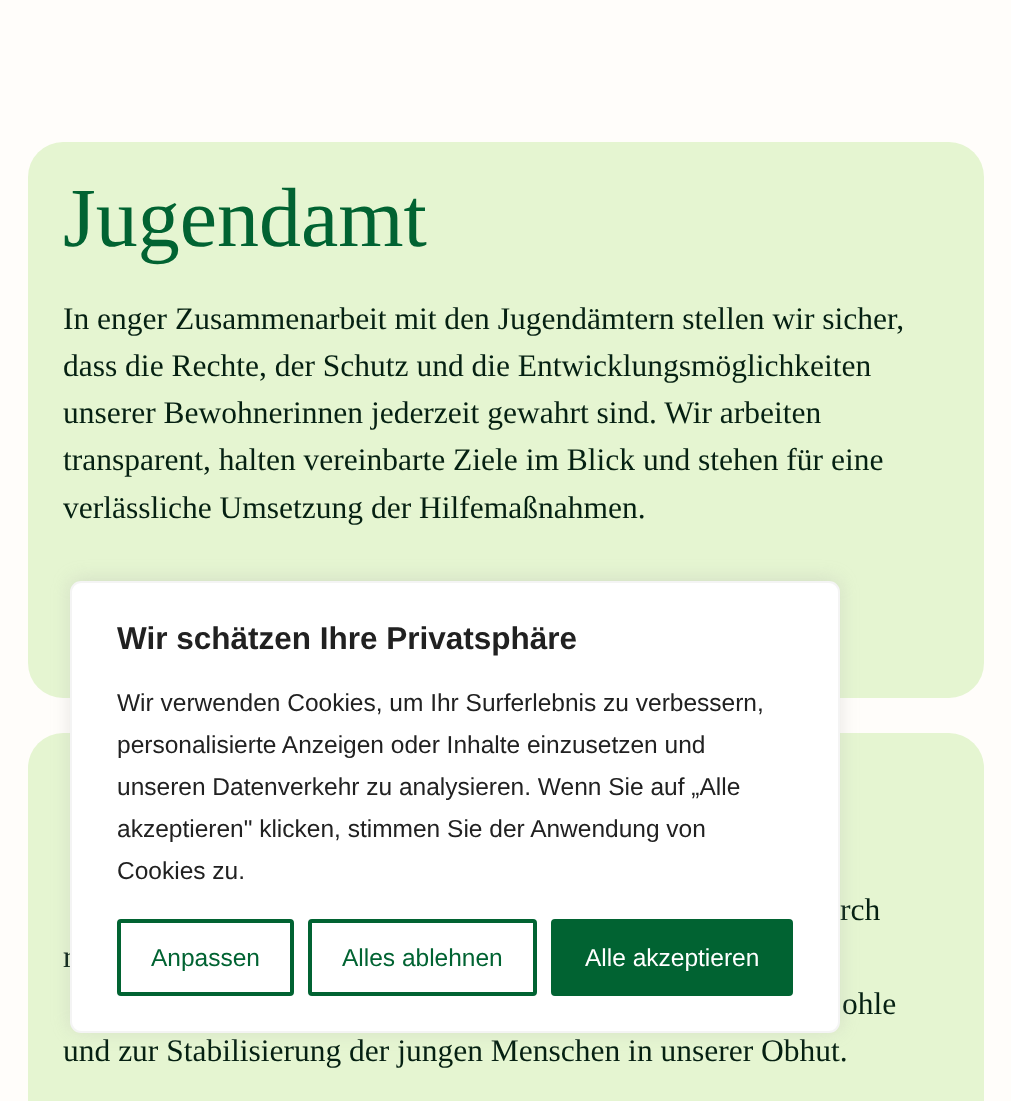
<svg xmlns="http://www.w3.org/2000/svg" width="1011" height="1101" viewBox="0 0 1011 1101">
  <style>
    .t1 { font: 84px Liberation Serif; fill: #016332; }
    .t2 { font: 31.5px Liberation Serif; fill: #052012; }
    .t3 { font: bold 31.5px Liberation Sans; fill: #212121; }
    .t4 { font: 24.5px Liberation Sans; fill: #212121; }
    .t5 { font: 24.5px Liberation Sans; fill: #016332; }
    .t6 { font: 24.5px Liberation Sans; fill: #fff; }
  </style>
  <rect width="100%" height="100%" fill="#fffdfa"/>
  <rect x="28" y="142" width="956" height="556" rx="35" fill="#e5f5d1"/>
  <text x="63" y="246" class="t1">Jugendamt</text>
  <text x="63" y="329" class="t2">In enger Zusammenarbeit mit den Jugendämtern stellen wir sicher,</text>
  <text x="63" y="376" class="t2">dass die Rechte, der Schutz und die Entwicklungsmöglichkeiten</text>
  <text x="63" y="423" class="t2">unserer Bewohnerinnen jederzeit gewahrt sind. Wir arbeiten</text>
  <text x="63" y="470" class="t2">transparent, halten vereinbarte Ziele im Blick und stehen für eine</text>
  <text x="63" y="518" class="t2">verlässliche Umsetzung der Hilfemaßnahmen.</text>
  <rect x="28" y="733" width="956" height="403" rx="35" fill="#e5f5d1"/>
  <text x="840" y="920" class="t2">rch</text>
  <text x="63" y="967" class="t2">r</text>
  <text x="842" y="1014" class="t2">ohle</text>
  <text x="63" y="1061" class="t2">und zur Stabilisierung der jungen Menschen in unserer Obhut.</text>
  <rect x="70" y="579" width="770" height="452" rx="11" fill="#acabab4d" filter="blur(9px)"/>
  <rect x="71" y="582" width="768" height="450" rx="10" fill="#fff" stroke="#f4f4f4" stroke-width="2"/>
  <text x="117" y="649" class="t3">Wir schätzen Ihre Privatsphäre</text>
  <text x="117" y="711" class="t4">Wir verwenden Cookies, um Ihr Surferlebnis zu verbessern,</text>
  <text x="117" y="753" class="t4">personalisierte Anzeigen oder Inhalte einzusetzen und</text>
  <text x="117" y="795" class="t4">unseren Datenverkehr zu analysieren. Wenn Sie auf „Alle</text>
  <text x="117" y="837" class="t4">akzeptieren" klicken, stimmen Sie der Anwendung von</text>
  <text x="117" y="879" class="t4">Cookies zu.</text>
  <rect x="119" y="921" width="173" height="73" rx="2" fill="none" stroke="#016332" stroke-width="4"/>
  <text x="151" y="966" class="t5">Anpassen</text>
  <rect x="310" y="921" width="225" height="73" rx="2" fill="none" stroke="#016332" stroke-width="4"/>
  <text x="342" y="966" class="t5">Alles ablehnen</text>
  <rect x="553" y="921" width="238" height="73" rx="2" fill="#016332" stroke="#016332" stroke-width="4"/>
  <text x="585" y="966" class="t6">Alle akzeptieren</text>
</svg>
